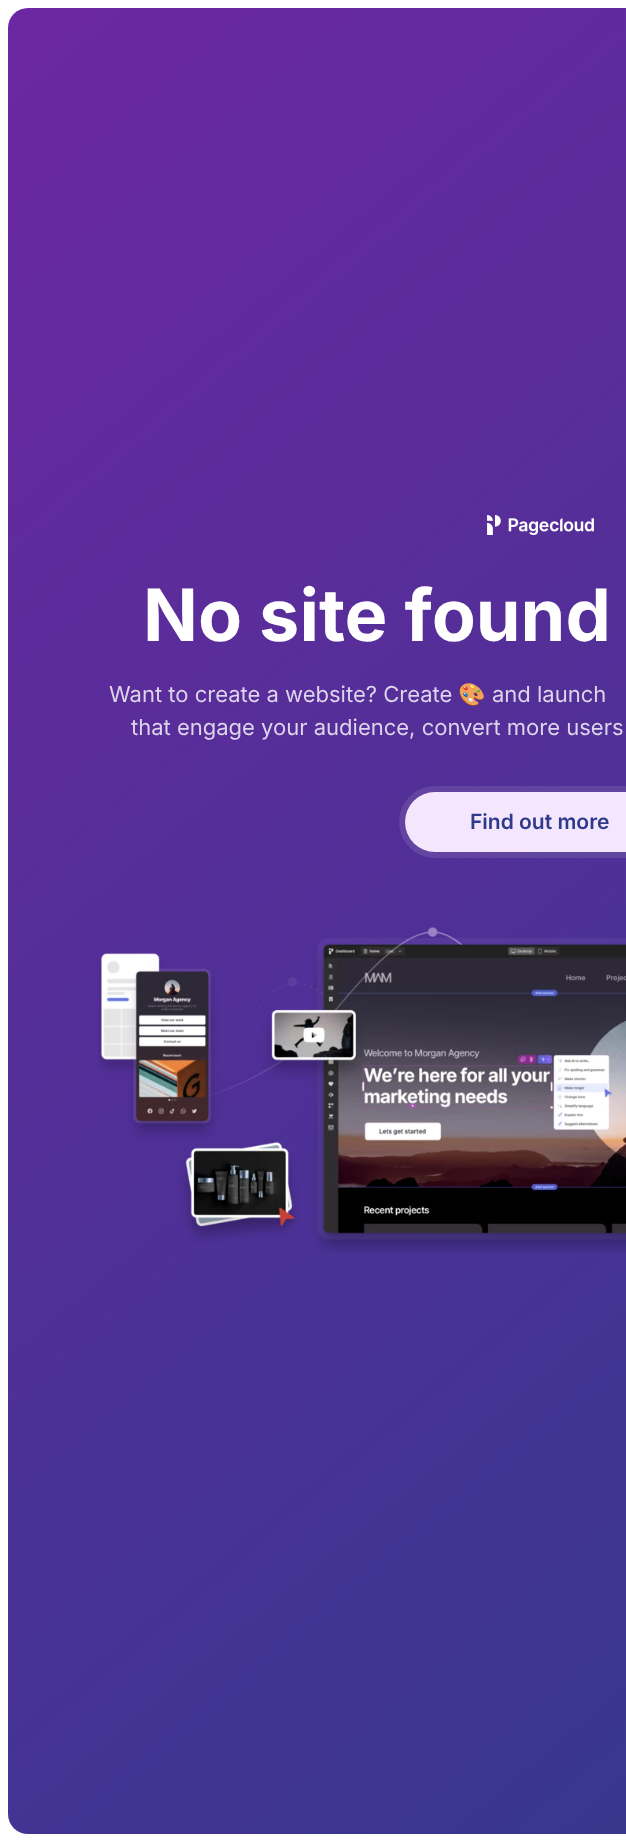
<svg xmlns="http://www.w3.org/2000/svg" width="626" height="1842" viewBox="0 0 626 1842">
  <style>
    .t1 { font: bold 72px Inter; fill: #fff; }
    .t2 { font: 22px Inter; fill: #ddd5eb; }
    .t3 { font: 22px Noto Color Emoji; fill: #ddd5eb; }
    .t4 { font: 600 21px Inter; fill: #2f3a8b; }
  </style>
  <defs>
    <linearGradient id="g1" gradientUnits="userSpaceOnUse" x1="-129" y1="123" x2="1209" y2="1719"><stop offset="0" stop-color="#6c27a1"/><stop offset="1" stop-color="#2f3a8b"/></linearGradient>
  </defs>
  <rect width="100%" height="100%" fill="#fff"/>
  <rect x="8" y="8" width="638" height="1826" rx="20" fill="url(#g1)"/>
  <image x="487" y="515" width="107" height="20" href="images/1.png"/>
  <text x="143" y="641" class="t1">No site found</text>
  <text x="109" y="702" class="t2">Want to create a website? Create</text>
  <text x="458" y="702" class="t3">🎨</text>
  <text x="492" y="702" class="t2">and launch</text>
  <text x="131" y="735" class="t2">that engage your audience, convert more users</text>
  <rect x="402" y="789" width="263" height="66" rx="33" fill="none" stroke="#ffffff1a" stroke-width="6"/>
  <rect x="405" y="792" width="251" height="60" rx="30" fill="#f4e7fd"/>
  <text x="470" y="829" class="t4">Find out more</text>
  <image x="98" y="927" width="528" height="326" href="images/2.png"/>
</svg>
